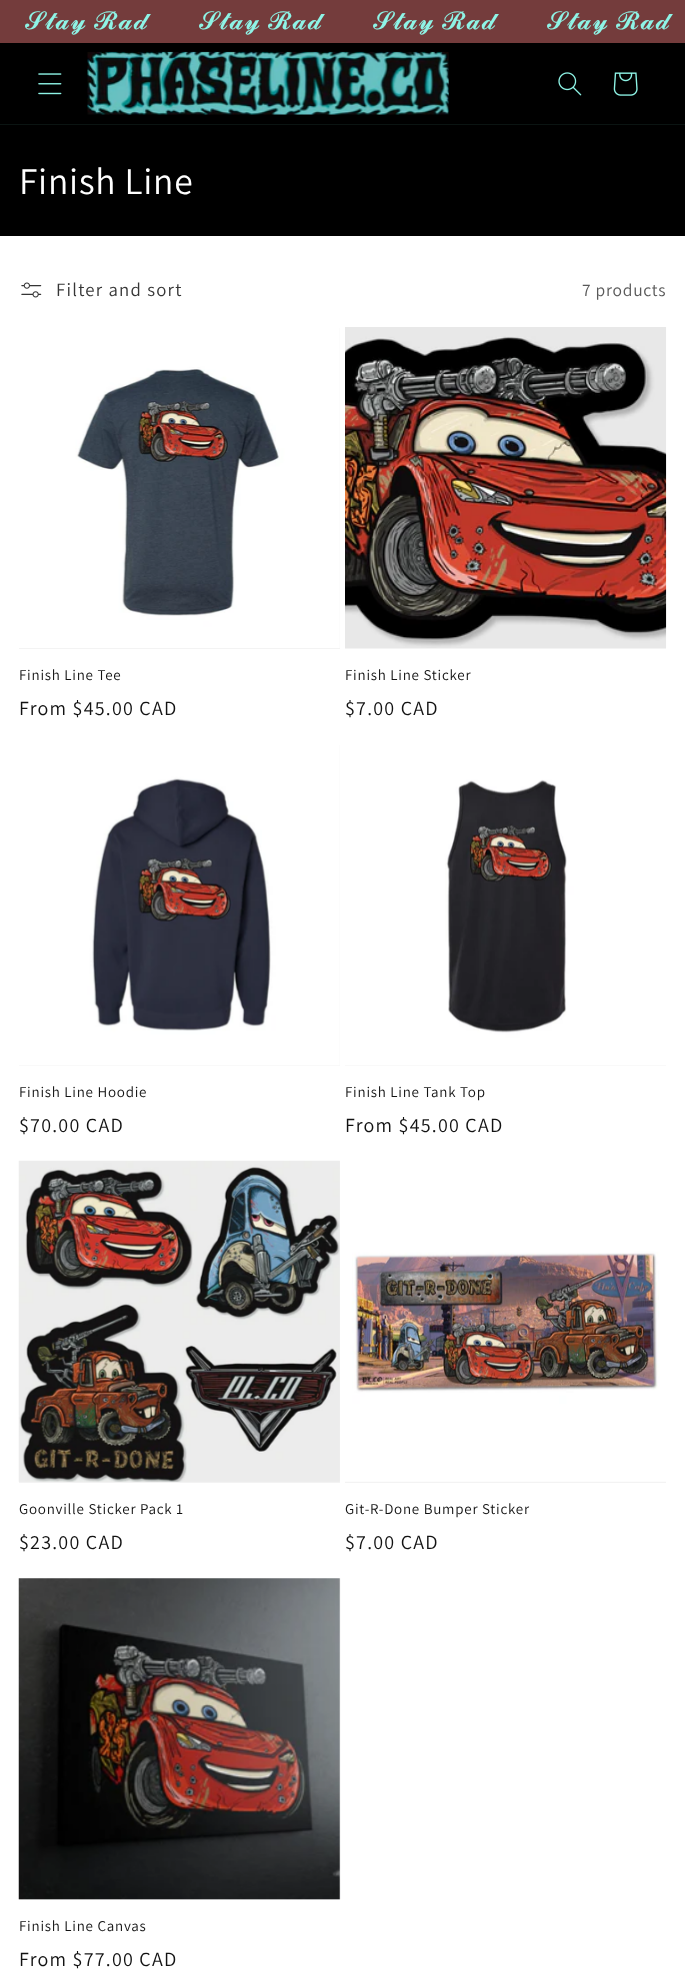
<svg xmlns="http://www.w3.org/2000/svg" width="685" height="1986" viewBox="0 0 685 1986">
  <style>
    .t1 { font: 25px FreeSerif; letter-spacing: 0.75px; fill: #8ef4e6; }
    .t2 { font: 37.5px Assistant; letter-spacing: 0.75px; fill: #fff; }
    .t3 { font: 18.75px Assistant; letter-spacing: 1.25px; fill: #363636; }
    .t4 { font: 17.5px Assistant; letter-spacing: 0.75px; fill: #595959; }
    .t5 { font: 15px Assistant; letter-spacing: 0.75px; fill: #121212; }
    .t6 { font: 20px Assistant; letter-spacing: 1.25px; fill: #121212; }
  </style>
  <rect width="100%" height="100%" fill="#fff"/>
  <rect x="0" y="0" width="685" height="43" fill="#743c3c"/>
  <text x="25" y="29" class="t1">𝓢𝓽𝓪𝔂 𝓡𝓪𝓭</text>
  <text x="199" y="29" class="t1">𝓢𝓽𝓪𝔂 𝓡𝓪𝓭</text>
  <text x="373" y="29" class="t1">𝓢𝓽𝓪𝔂 𝓡𝓪𝓭</text>
  <text x="547" y="29" class="t1">𝓢𝓽𝓪𝔂 𝓡𝓪𝓭</text>
  <rect x="0" y="43" width="685" height="81" fill="#000"/>
  <rect x="0" y="124" width="685" height="1" fill="#0b1412"/>
  <image x="38" y="73" width="24" height="22" href="images/1.png"/>
  <image x="87" y="51" width="362" height="64" href="images/2.png"/>
  <image x="558" y="72" width="24" height="24" href="images/3.png"/>
  <image x="613" y="72" width="25" height="24" href="images/4.png"/>
  <rect x="0" y="125" width="685" height="111" fill="#000"/>
  <text x="19" y="194" class="t2">Finish Line</text>
  <image x="21" y="282" width="21" height="16" href="images/5.png"/>
  <text x="56" y="296" class="t3">Filter and sort</text>
  <text x="582" y="296" class="t4">7 products</text>
  <rect x="19" y="328" width="321" height="321" fill="#f3f3f3"/>
  <image x="19" y="328" width="321" height="320" href="images/6.png"/>
  <text x="19" y="680" class="t5">Finish Line Tee</text>
  <text x="19" y="715" class="t6">From $45.00 CAD</text>
  <rect x="345" y="648" width="321" height="1" fill="#f3f3f3"/>
  <image x="345" y="327" width="322" height="321" href="images/7.png"/>
  <text x="345" y="680" class="t5">Finish Line Sticker</text>
  <text x="345" y="715" class="t6">$7.00 CAD</text>
  <rect x="19" y="745" width="321" height="321" fill="#f3f3f3"/>
  <image x="19" y="745" width="321" height="321" href="images/8.png"/>
  <text x="19" y="1097" class="t5">Finish Line Hoodie</text>
  <text x="19" y="1132" class="t6">$70.00 CAD</text>
  <rect x="345" y="1065" width="321" height="1" fill="#f3f3f3"/>
  <image x="345" y="745" width="321" height="321" href="images/9.png"/>
  <text x="345" y="1097" class="t5">Finish Line Tank Top</text>
  <text x="345" y="1132" class="t6">From $45.00 CAD</text>
  <rect x="19" y="1161" width="321" height="322" fill="#f3f3f3"/>
  <image x="18" y="1160" width="322" height="322" href="images/10.png"/>
  <text x="19" y="1514" class="t5">Goonville Sticker Pack 1</text>
  <text x="19" y="1549" class="t6">$23.00 CAD</text>
  <rect x="345" y="1481" width="321" height="2" fill="#f3f3f3"/>
  <image x="345" y="1161" width="321" height="321" href="images/11.png"/>
  <text x="345" y="1514" class="t5">Git-R-Done Bumper Sticker</text>
  <text x="345" y="1549" class="t6">$7.00 CAD</text>
  <rect x="19" y="1579" width="321" height="321" fill="#f3f3f3"/>
  <image x="18" y="1578" width="323" height="322" href="images/12.png"/>
  <text x="19" y="1931" class="t5">Finish Line Canvas</text>
  <text x="19" y="1966" class="t6">From $77.00 CAD</text>
</svg>
